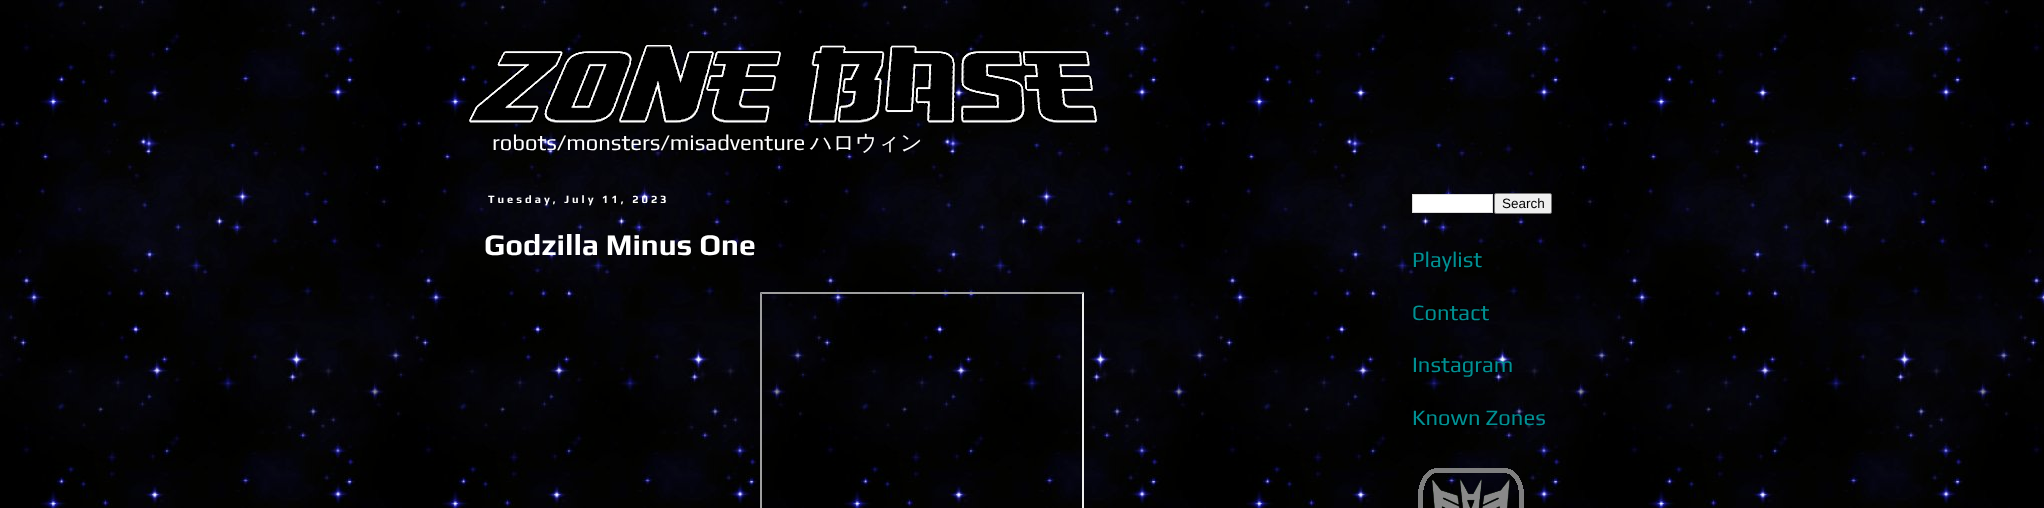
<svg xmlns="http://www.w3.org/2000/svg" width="2044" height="508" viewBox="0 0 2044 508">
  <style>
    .t1 { font: 22px Play; fill: #fff; }
    .t2 { font: 500 22px WenQuanYi Zen Hei; fill: #fff; }
    .t3 { font: bold 11px Play; letter-spacing: 3px; fill: #fff; }
    .t4 { font: bold 30px Play; fill: #fff; }
    .t5 { font: 13.5px Liberation Sans; fill: #000; }
    .t6 { font: 22px Play; fill: #009193; }
  </style>
  <rect width="100%" height="100%" fill="#fff"/>
  <image x="0" y="0" width="2044" height="508" href="images/1.png"/>
  <image x="469" y="44" width="629" height="80" href="images/2.png"/>
  <text x="492" y="150" class="t1">robots/monsters/misadventure</text>
  <text x="810" y="150" class="t2">ハロウィン</text>
  <text x="488" y="203" class="t3">Tuesday, July 11, 2023</text>
  <text x="484" y="255" class="t4">Godzilla Minus One</text>
  <path d="M760 292H1084L1082 294H762Z" fill="#9f9f9f"/>
  <path d="M760 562V292L762 294V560Z" fill="#9f9f9f"/>
  <path d="M1084 292V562L1082 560V294Z" fill="#eee"/>
  <rect x="1412.5" y="194.5" width="80" height="18" fill="#fff" stroke="#ddd"/>
  <rect x="1494.5" y="193.5" width="57" height="20" rx="1.5" fill="#efefef" stroke="#767676"/>
  <text x="1502" y="208" class="t5">Search</text>
  <text x="1412" y="267" class="t6">Playlist</text>
  <text x="1412" y="320" class="t6">Contact</text>
  <text x="1412" y="372" class="t6">Instagram</text>
  <text x="1412" y="425" class="t6">Known Zones</text>
  <image x="1418" y="468" width="106" height="40" href="images/3.png"/>
</svg>
